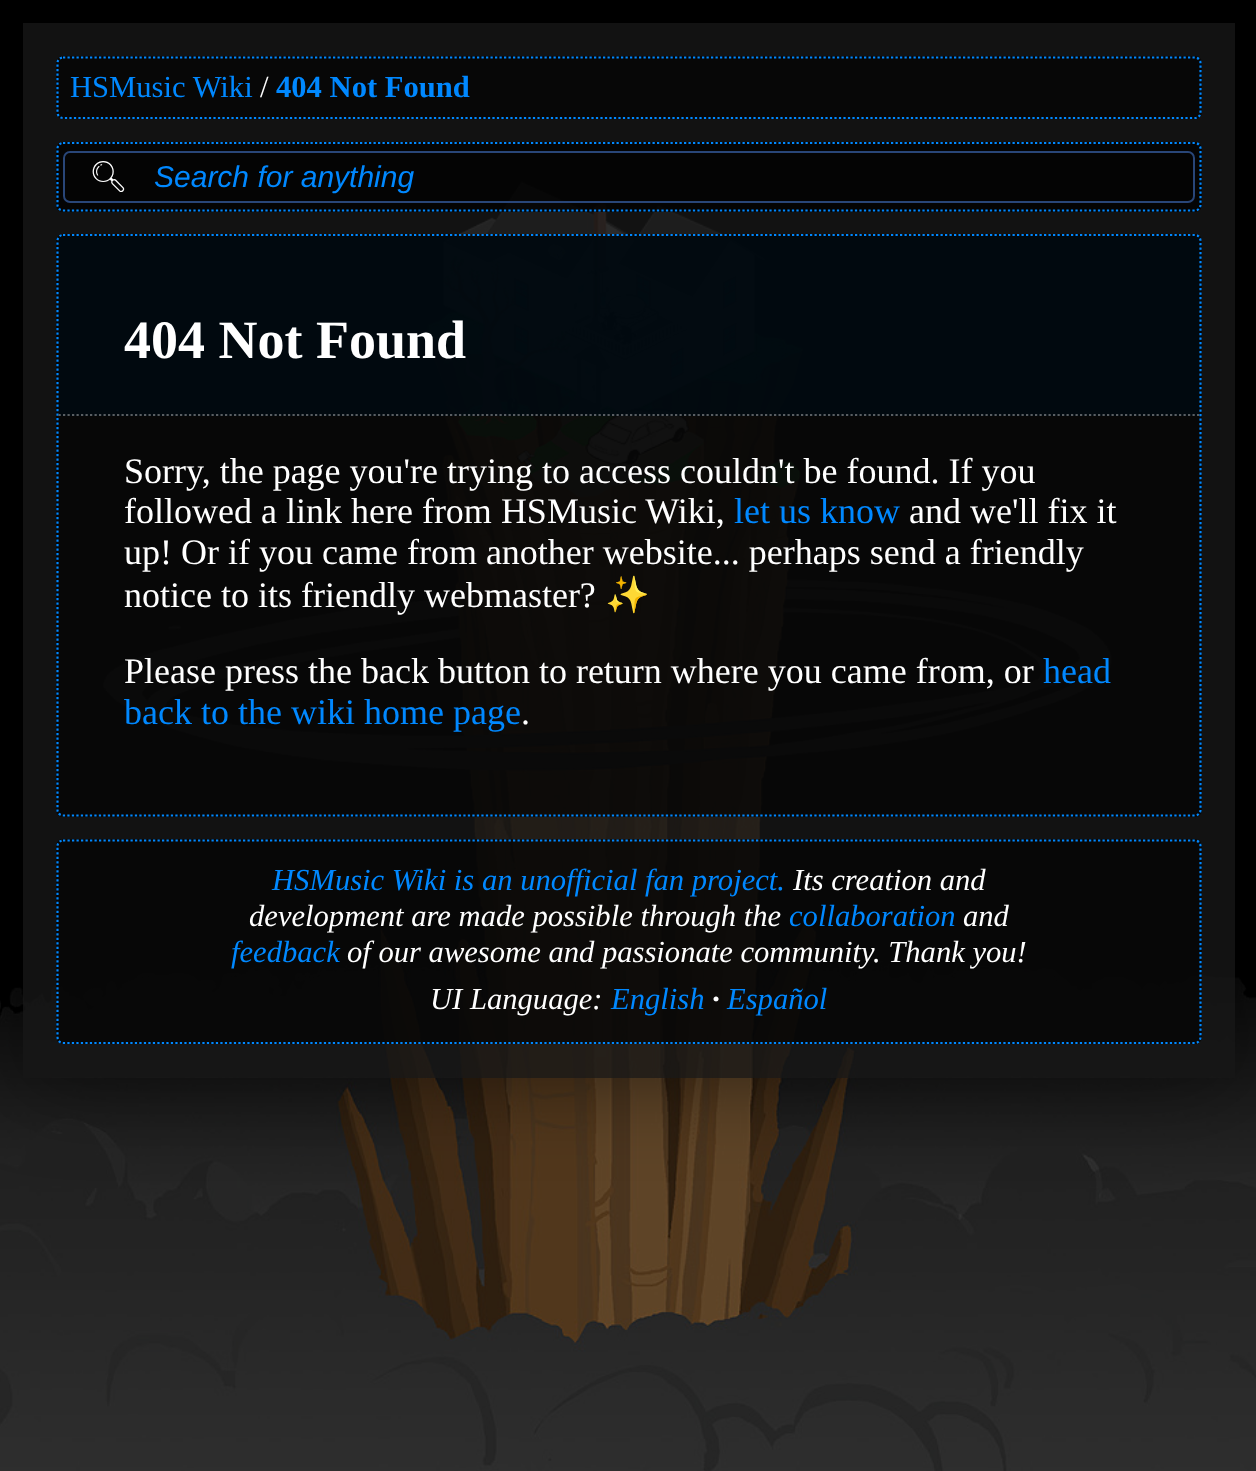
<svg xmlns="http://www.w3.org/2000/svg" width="1256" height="1471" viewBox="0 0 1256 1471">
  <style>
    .t1 { font: 30.6px Liberation Serif; fill: #08f; }
    .t2 { font: 30.6px Liberation Serif; fill: #fff; }
    .t3 { font: bold 30.6px Liberation Serif; fill: #08f; }
    .t4 { font: 30.6px Noto Emoji; fill: #fff; }
    .t5 { font: italic 30px Liberation Sans; fill: #08f; }
    .t6 { font: bold 54px Liberation Serif; fill: #fff; }
    .t7 { font: 36px Liberation Serif; fill: #fff; }
    .t8 { font: 36px Liberation Serif; fill: #08f; }
    .t9 { font: 36px Noto Color Emoji; fill: #fff; }
    .t10 { font: italic 30.6px Liberation Serif; fill: #08f; }
    .t11 { font: italic 30.6px Liberation Serif; fill: #fff; }
    .t12 { font: italic bold 30.6px Liberation Serif; fill: #fff; }
  </style>
  <defs>
    <clipPath id="clip1"><path d="M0 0H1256V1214H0ZM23 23H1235V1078H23Z" clip-rule="evenodd"/></clipPath>
  </defs>
  <rect width="100%" height="100%" fill="#000"/>
  <image x="0" y="181" width="1256" height="1290" href="images/1.png"/>
  <g clip-path="url(#clip1)">
    <rect x="23" y="23" width="1212" height="1055" fill="#00000080" filter="blur(45px)"/>
  </g>
  <rect x="23" y="23" width="1212" height="1055" fill="#161616cc"/>
  <rect x="56" y="56" width="1146" height="63" rx="7" fill="#070707"/>
  <path d="M63 57.5H1195C1198 57.5 1200.5 60 1200.5 63V112.5C1200.5 115.5 1198 118 1195 118H63C60 118 57.5 115.5 57.5 112.5V63C57.5 60 60 57.5 63 57.5Z" fill="none" stroke="#08f" stroke-width="2.2" stroke-dasharray="2.25 2.25"/>
  <text x="70" y="97" class="t1">HSMusic Wiki</text>
  <text x="260" y="97" class="t2">/</text>
  <text x="276" y="97" class="t3">404 Not Found</text>
  <rect x="56" y="142" width="1146" height="70" rx="7" fill="#000000bf"/>
  <path d="M63 143H1195C1198 143 1200.5 145.5 1200.5 148.5V205C1200.5 208 1198 210.5 1195 210.5H63C60 210.5 57.5 208 57.5 205V148.5C57.5 145.5 60 143 63 143Z" fill="none" stroke="#08f" stroke-width="2.2" stroke-dasharray="2.25 2.25"/>
  <rect x="64" y="152" width="1130" height="50" rx="6" fill="none" stroke="#294678" stroke-width="2"/>
  <text x="89" y="187" class="t4">🔍︎</text>
  <text x="154" y="187" class="t5">Search for anything</text>
  <rect x="56" y="234" width="1146" height="583" rx="7" fill="#00000099"/>
  <path d="M63 235H1195C1198 235 1200.5 237.5 1200.5 241V810C1200.5 813 1198 815.5 1195 815.5H63C60 815.5 57.5 813 57.5 810V241C57.5 237.5 60 235 63 235Z" fill="none" stroke="#08f" stroke-width="2.2" stroke-dasharray="2.25 2.25"/>
  <path d="M64 236H1194C1197 236 1199 238 1199 241V416H59V241C59 238 61 236 64 236Z" fill="#000a12cc"/>
  <path d="M58.5 415H1199" fill="none" stroke="#595e62" stroke-width="2.2" stroke-dasharray="2.25 2.25"/>
  <text x="124" y="358" class="t6">404 Not Found</text>
  <text x="124" y="483" class="t7">Sorry, the page you're trying to access couldn't be found. If you</text>
  <text x="124" y="523" class="t7">followed a link here from HSMusic Wiki,</text>
  <text x="734" y="523" class="t8">let us know</text>
  <text x="909" y="523" class="t7">and we'll fix it</text>
  <text x="124" y="564" class="t7">up! Or if you came from another website... perhaps send a friendly</text>
  <text x="124" y="607" class="t7">notice to its friendly webmaster?</text>
  <text x="605" y="607" class="t9">✨</text>
  <text x="124" y="683" class="t7">Please press the back button to return where you came from, or</text>
  <text x="1043" y="683" class="t8">head</text>
  <text x="124" y="724" class="t8">back to the wiki home page</text>
  <text x="521" y="724" class="t7">.</text>
  <rect x="56" y="839" width="1146" height="205" rx="7" fill="#00000099"/>
  <path d="M63 840.5H1195C1198 840.5 1200.5 843 1200.5 846V1037C1200.5 1040.5 1198 1043 1195 1043H63C60 1043 57.5 1040.5 57.5 1037V846C57.5 843 60 840.5 63 840.5Z" fill="none" stroke="#08f" stroke-width="2.2" stroke-dasharray="2.25 2.25"/>
  <text x="272" y="890" class="t10">HSMusic Wiki is an unofficial fan project.</text>
  <text x="793" y="890" class="t11">Its creation and</text>
  <text x="249" y="926" class="t11">development are made possible through the</text>
  <text x="789" y="926" class="t10">collaboration</text>
  <text x="963" y="926" class="t11">and</text>
  <text x="231" y="962" class="t10">feedback</text>
  <text x="347" y="962" class="t11">of our awesome and passionate community. Thank you!</text>
  <text x="430" y="1009" class="t11">UI Language:</text>
  <text x="611" y="1009" class="t10">English</text>
  <text x="712" y="1009" class="t12">·</text>
  <text x="727" y="1009" class="t10">Español</text>
</svg>
